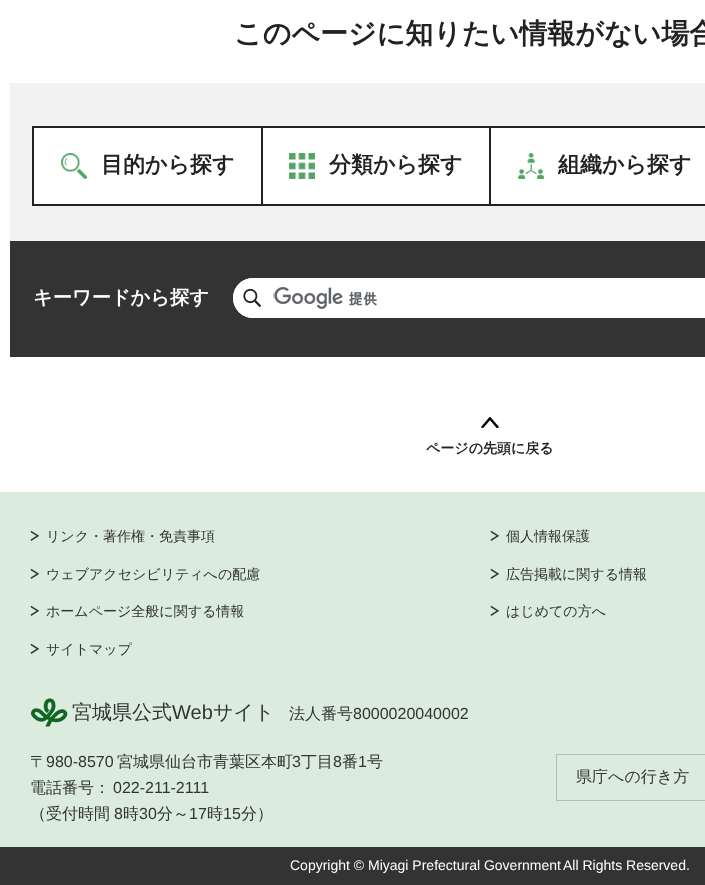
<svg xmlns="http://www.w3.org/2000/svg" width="705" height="885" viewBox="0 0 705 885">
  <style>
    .t1 { font: bold 28px WenQuanYi Zen Hei; fill: #222; }
    .t2 { font: bold 22px WenQuanYi Zen Hei; fill: #222; }
    .t3 { font: bold 19.25px WenQuanYi Zen Hei; fill: #fff; }
    .t4 { font: bold 14px WenQuanYi Zen Hei; fill: #222; }
    .t5 { font: 500 14px WenQuanYi Zen Hei; fill: #333; }
    .t6 { font: 500 20px WenQuanYi Zen Hei; fill: #333; }
    .t7 { font: 20px Liberation Sans; fill: #333; }
    .t8 { font: 500 16px WenQuanYi Zen Hei; fill: #333; }
    .t9 { font: 16px Liberation Sans; fill: #333; }
    .t10 { font: 14px Liberation Sans; fill: #fff; }
  </style>
  <rect width="100%" height="100%" fill="#fff"/>
  <text x="234" y="43" class="t1">このページに知りたい情報がない場合</text>
  <rect x="10" y="83" width="695" height="158" fill="#f2f2f2"/>
  <rect x="34" y="128" width="671" height="76" fill="#fff"/>
  <rect x="32" y="126" width="2" height="80" fill="#222"/>
  <rect x="34" y="126" width="671" height="2" fill="#222"/>
  <rect x="261" y="126" width="2" height="80" fill="#222"/>
  <rect x="34" y="204" width="229" height="2" fill="#222"/>
  <image x="61" y="153" width="26" height="26" href="images/1.png"/>
  <text x="101" y="172" class="t2">目的から探す</text>
  <rect x="489" y="126" width="2" height="80" fill="#222"/>
  <rect x="263" y="204" width="442" height="2" fill="#222"/>
  <image x="289" y="153" width="26" height="26" href="images/2.png"/>
  <text x="329" y="172" class="t2">分類から探す</text>
  <image x="518" y="153" width="26" height="26" href="images/3.png"/>
  <text x="558" y="172" class="t2">組織から探す</text>
  <rect x="10" y="241" width="695" height="116" fill="#333"/>
  <text x="33" y="304" class="t3">キーワードから探す</text>
  <rect x="233" y="278" width="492" height="40" rx="20" fill="#fff"/>
  <image x="273" y="287" width="104" height="22" href="images/4.png"/>
  <rect x="233.5" y="278.5" width="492" height="39" rx="19.5" fill="none" stroke="#fff"/>
  <image x="243" y="288" width="18" height="19" href="images/5.png"/>
  <image x="481" y="417" width="18" height="11" href="images/6.png"/>
  <text x="426" y="453" class="t4">ページの先頭に戻る</text>
  <rect x="0" y="492" width="705" height="355" fill="#dbecdf"/>
  <image x="30" y="530" width="9" height="11" href="images/7.png"/>
  <text x="46" y="541" class="t5">リンク・著作権・免責事項</text>
  <image x="490" y="530" width="9" height="11" href="images/7.png"/>
  <text x="506" y="541" class="t5">個人情報保護</text>
  <image x="30" y="568" width="9" height="11" href="images/7.png"/>
  <text x="46" y="579" class="t5">ウェブアクセシビリティへの配慮</text>
  <image x="490" y="568" width="9" height="11" href="images/7.png"/>
  <text x="506" y="579" class="t5">広告掲載に関する情報</text>
  <image x="30" y="605" width="9" height="11" href="images/7.png"/>
  <text x="46" y="616" class="t5">ホームページ全般に関する情報</text>
  <image x="490" y="605" width="9" height="11" href="images/7.png"/>
  <text x="506" y="616" class="t5">はじめての方へ</text>
  <image x="30" y="643" width="9" height="11" href="images/7.png"/>
  <text x="46" y="654" class="t5">サイトマップ</text>
  <image x="31" y="698" width="37" height="29" href="images/8.png"/>
  <text x="72" y="719" class="t6">宮城県公式</text>
  <text x="172" y="719" class="t7">Web</text>
  <text x="213" y="719" class="t6">サイト</text>
  <text x="289" y="719" class="t8">法人番号</text>
  <text x="353" y="719" class="t9">8000020040002</text>
  <text x="30" y="767" class="t8">〒</text>
  <text x="46" y="767" class="t9">980-8570</text>
  <text x="117" y="767" class="t8">宮城県仙台市青葉区本町</text>
  <text x="292" y="767" class="t9">3</text>
  <text x="301" y="767" class="t8">丁目</text>
  <text x="333" y="767" class="t9">8</text>
  <text x="342" y="767" class="t8">番</text>
  <text x="358" y="767" class="t9">1</text>
  <text x="367" y="767" class="t8">号</text>
  <text x="30" y="793" class="t8">電話番号：</text>
  <text x="113" y="793" class="t9">022-211-2111</text>
  <text x="30" y="819" class="t8">（受付時間</text>
  <text x="114" y="819" class="t9">8</text>
  <text x="123" y="819" class="t8">時</text>
  <text x="139" y="819" class="t9">30</text>
  <text x="157" y="819" class="t8">分～</text>
  <text x="189" y="819" class="t9">17</text>
  <text x="207" y="819" class="t8">時</text>
  <text x="223" y="819" class="t9">15</text>
  <text x="241" y="819" class="t8">分）</text>
  <rect x="556.5" y="754.5" width="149" height="46" fill="none" stroke="#b1beb4"/>
  <text x="576" y="782" class="t8">県庁への行き方</text>
  <rect x="0" y="847" width="705" height="38" fill="#333"/>
  <text x="290" y="870" class="t10">Copyright © Miyagi Prefectural Government</text>
  <text x="563" y="870" class="t10">All Rights Reserved.</text>
</svg>
